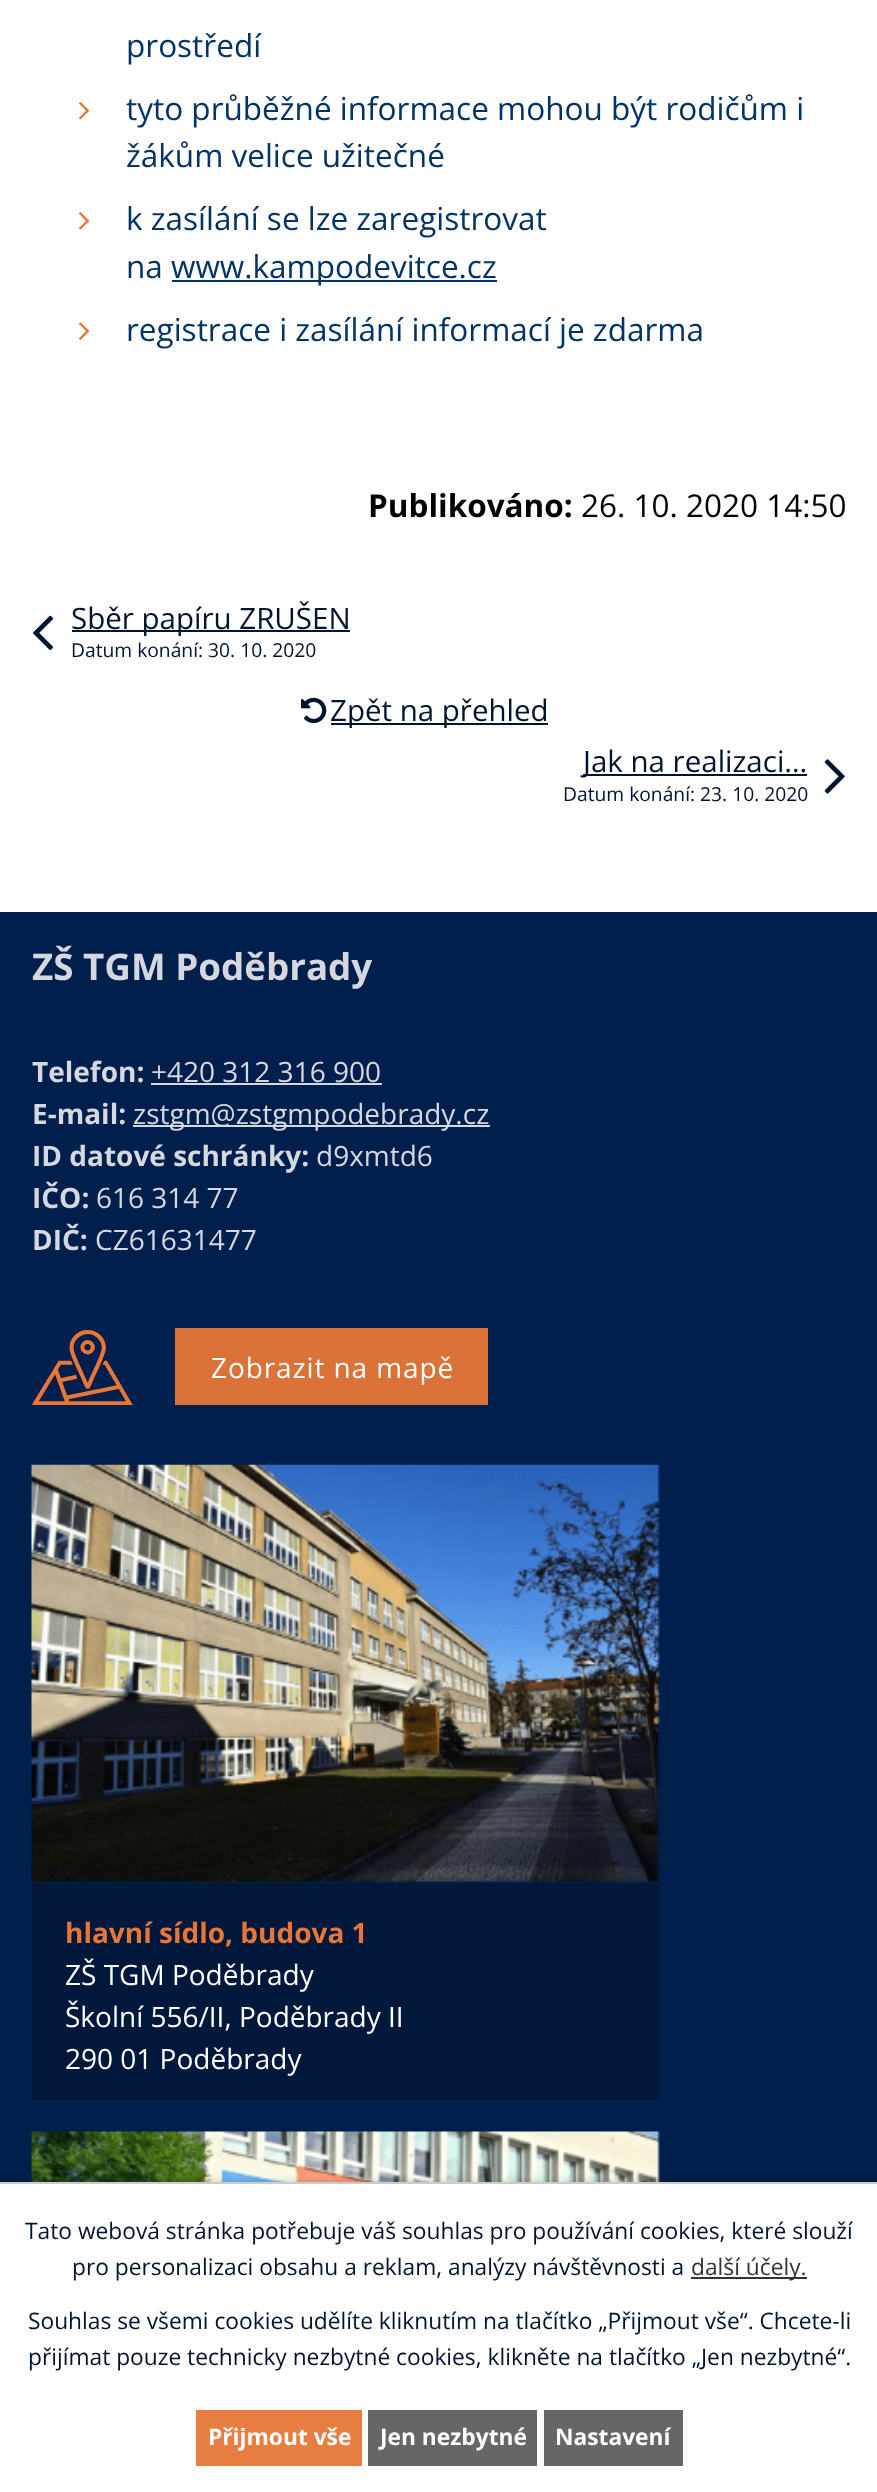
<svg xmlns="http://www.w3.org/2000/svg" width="877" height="2492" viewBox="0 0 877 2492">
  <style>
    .t1 { font: 31.5px Open Sans; fill: #036; }
    .t2 { font: bold 31.5px Open Sans; fill: #000; }
    .t3 { font: 31.5px Open Sans; fill: #000; }
    .t4 { font: 29.5px Open Sans; fill: #001431; }
    .t5 { font: 19.25px Open Sans; fill: #001431; }
    .t6 { font: bold 36.75px Open Sans; fill: #d5d8de; }
    .t7 { font: bold 28px Open Sans; fill: #d5d8de; }
    .t8 { font: 28px Open Sans; fill: #d5d8de; }
    .t9 { font: 28px Open Sans; letter-spacing: 0.9px; fill: #fff; }
    .t10 { font: bold 28px Open Sans; fill: #e77637; }
    .t11 { font: 28px Open Sans; fill: #fff; }
    .t12 { font: 22.75px Open Sans; fill: #001431; }
    .t13 { font: 22.75px Open Sans; fill: #333; }
    .t14 { font: bold 22.75px Open Sans; fill: #fff; }
  </style>
  <rect width="100%" height="100%" fill="#fff"/>
  <text x="126" y="57" class="t1">prostředí</text>
  <image x="79" y="101" width="11" height="19" href="images/1.png"/>
  <text x="126" y="120" class="t1">tyto průběžné informace mohou být rodičům i</text>
  <text x="126" y="167" class="t1">žákům velice užitečné</text>
  <image x="79" y="212" width="11" height="18" href="images/2.png"/>
  <text x="126" y="230" class="t1">k zasílání se lze zaregistrovat</text>
  <text x="126" y="278" class="t1">na</text>
  <rect x="172" y="280" width="325" height="2" fill="#036"/>
  <text x="171" y="278" class="t1">www.kampodevitce.cz</text>
  <image x="79" y="322" width="11" height="18" href="images/3.png"/>
  <text x="126" y="341" class="t1">registrace i zasílání informací je zdarma</text>
  <text x="368" y="517" class="t2">Publikováno:</text>
  <text x="581" y="517" class="t3">26. 10. 2020 14:50</text>
  <image x="33" y="615" width="21" height="36" href="images/4.png"/>
  <rect x="72" y="630" width="278" height="2" fill="#001431"/>
  <text x="71" y="629" class="t4">Sběr papíru ZRUŠEN</text>
  <text x="71" y="657" class="t5">Datum konání: 30. 10. 2020</text>
  <image x="301" y="697" width="26" height="27" href="images/5.png"/>
  <rect x="331" y="723" width="217" height="2" fill="#001431"/>
  <text x="330" y="721" class="t4">Zpět na přehled</text>
  <rect x="583" y="774" width="224" height="2" fill="#001431"/>
  <text x="583" y="772" class="t4">Jak na realizaci…</text>
  <text x="563" y="801" class="t5">Datum konání: 23. 10. 2020</text>
  <image x="824" y="759" width="21" height="35" href="images/6.png"/>
  <rect x="0" y="912" width="877" height="1270" fill="#001f4d"/>
  <text x="32" y="980" class="t6">ZŠ TGM Poděbrady</text>
  <text x="32" y="1082" class="t7">Telefon:</text>
  <text x="151" y="1082" class="t8">+420 312 316 900</text>
  <rect x="151" y="1083" width="231" height="2" fill="#d5d8de"/>
  <text x="32" y="1124" class="t7">E-mail:</text>
  <rect x="133" y="1125" width="357" height="2" fill="#d5d8de"/>
  <text x="133" y="1124" class="t8">zstgm@zstgmpodebrady.cz</text>
  <text x="32" y="1166" class="t7">ID datové schránky:</text>
  <text x="316" y="1166" class="t8">d9xmtd6</text>
  <text x="32" y="1208" class="t7">IČO:</text>
  <text x="96" y="1208" class="t8">616 314 77</text>
  <text x="32" y="1250" class="t7">DIČ:</text>
  <text x="95" y="1250" class="t8">CZ61631477</text>
  <image x="32" y="1330" width="101" height="75" href="images/7.png"/>
  <rect x="175" y="1328" width="313" height="77" fill="#db7238"/>
  <text x="211" y="1378" class="t9">Zobrazit na mapě</text>
  <image x="31" y="1464" width="629" height="419" href="images/8.png"/>
  <rect x="32" y="1883" width="628" height="217" fill="#00183b"/>
  <text x="65" y="1943" class="t10">hlavní sídlo, budova 1</text>
  <text x="65" y="1985" class="t11">ZŠ TGM Poděbrady</text>
  <text x="65" y="2027" class="t11">Školní 556/II, Poděbrady II</text>
  <text x="65" y="2069" class="t11">290 01 Poděbrady</text>
  <image x="31" y="2131" width="629" height="51" href="images/9.png"/>
  <rect x="0" y="2182" width="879" height="310" fill="#00000033" filter="blur(4.5px)"/>
  <rect x="0" y="2184" width="877" height="308" fill="#fff"/>
  <rect x="0" y="2182" width="877" height="2" fill="#ccc"/>
  <text x="25" y="2239" class="t12">Tato webová stránka potřebuje váš souhlas pro používání cookies, které slouží</text>
  <text x="72" y="2275" class="t12">pro personalizaci obsahu a reklam, analýzy návštěvnosti a</text>
  <rect x="691" y="2277" width="116" height="2" fill="#333"/>
  <text x="691" y="2275" class="t13">další účely.</text>
  <text x="28" y="2329" class="t12">Souhlas se všemi cookies udělíte kliknutím na tlačítko „Přijmout vše“. Chcete-li</text>
  <text x="28" y="2365" class="t12">přijímat pouze technicky nezbytné cookies, klikněte na tlačítko „Jen nezbytné“.</text>
  <rect x="196" y="2410" width="166" height="56" fill="#e87d41"/>
  <text x="208" y="2445" class="t14">Přijmout vše</text>
  <rect x="368" y="2410" width="169" height="56" fill="#666"/>
  <text x="380" y="2445" class="t14">Jen nezbytné</text>
  <rect x="544" y="2410" width="139" height="56" fill="#666"/>
  <text x="555" y="2445" class="t14">Nastavení</text>
</svg>
